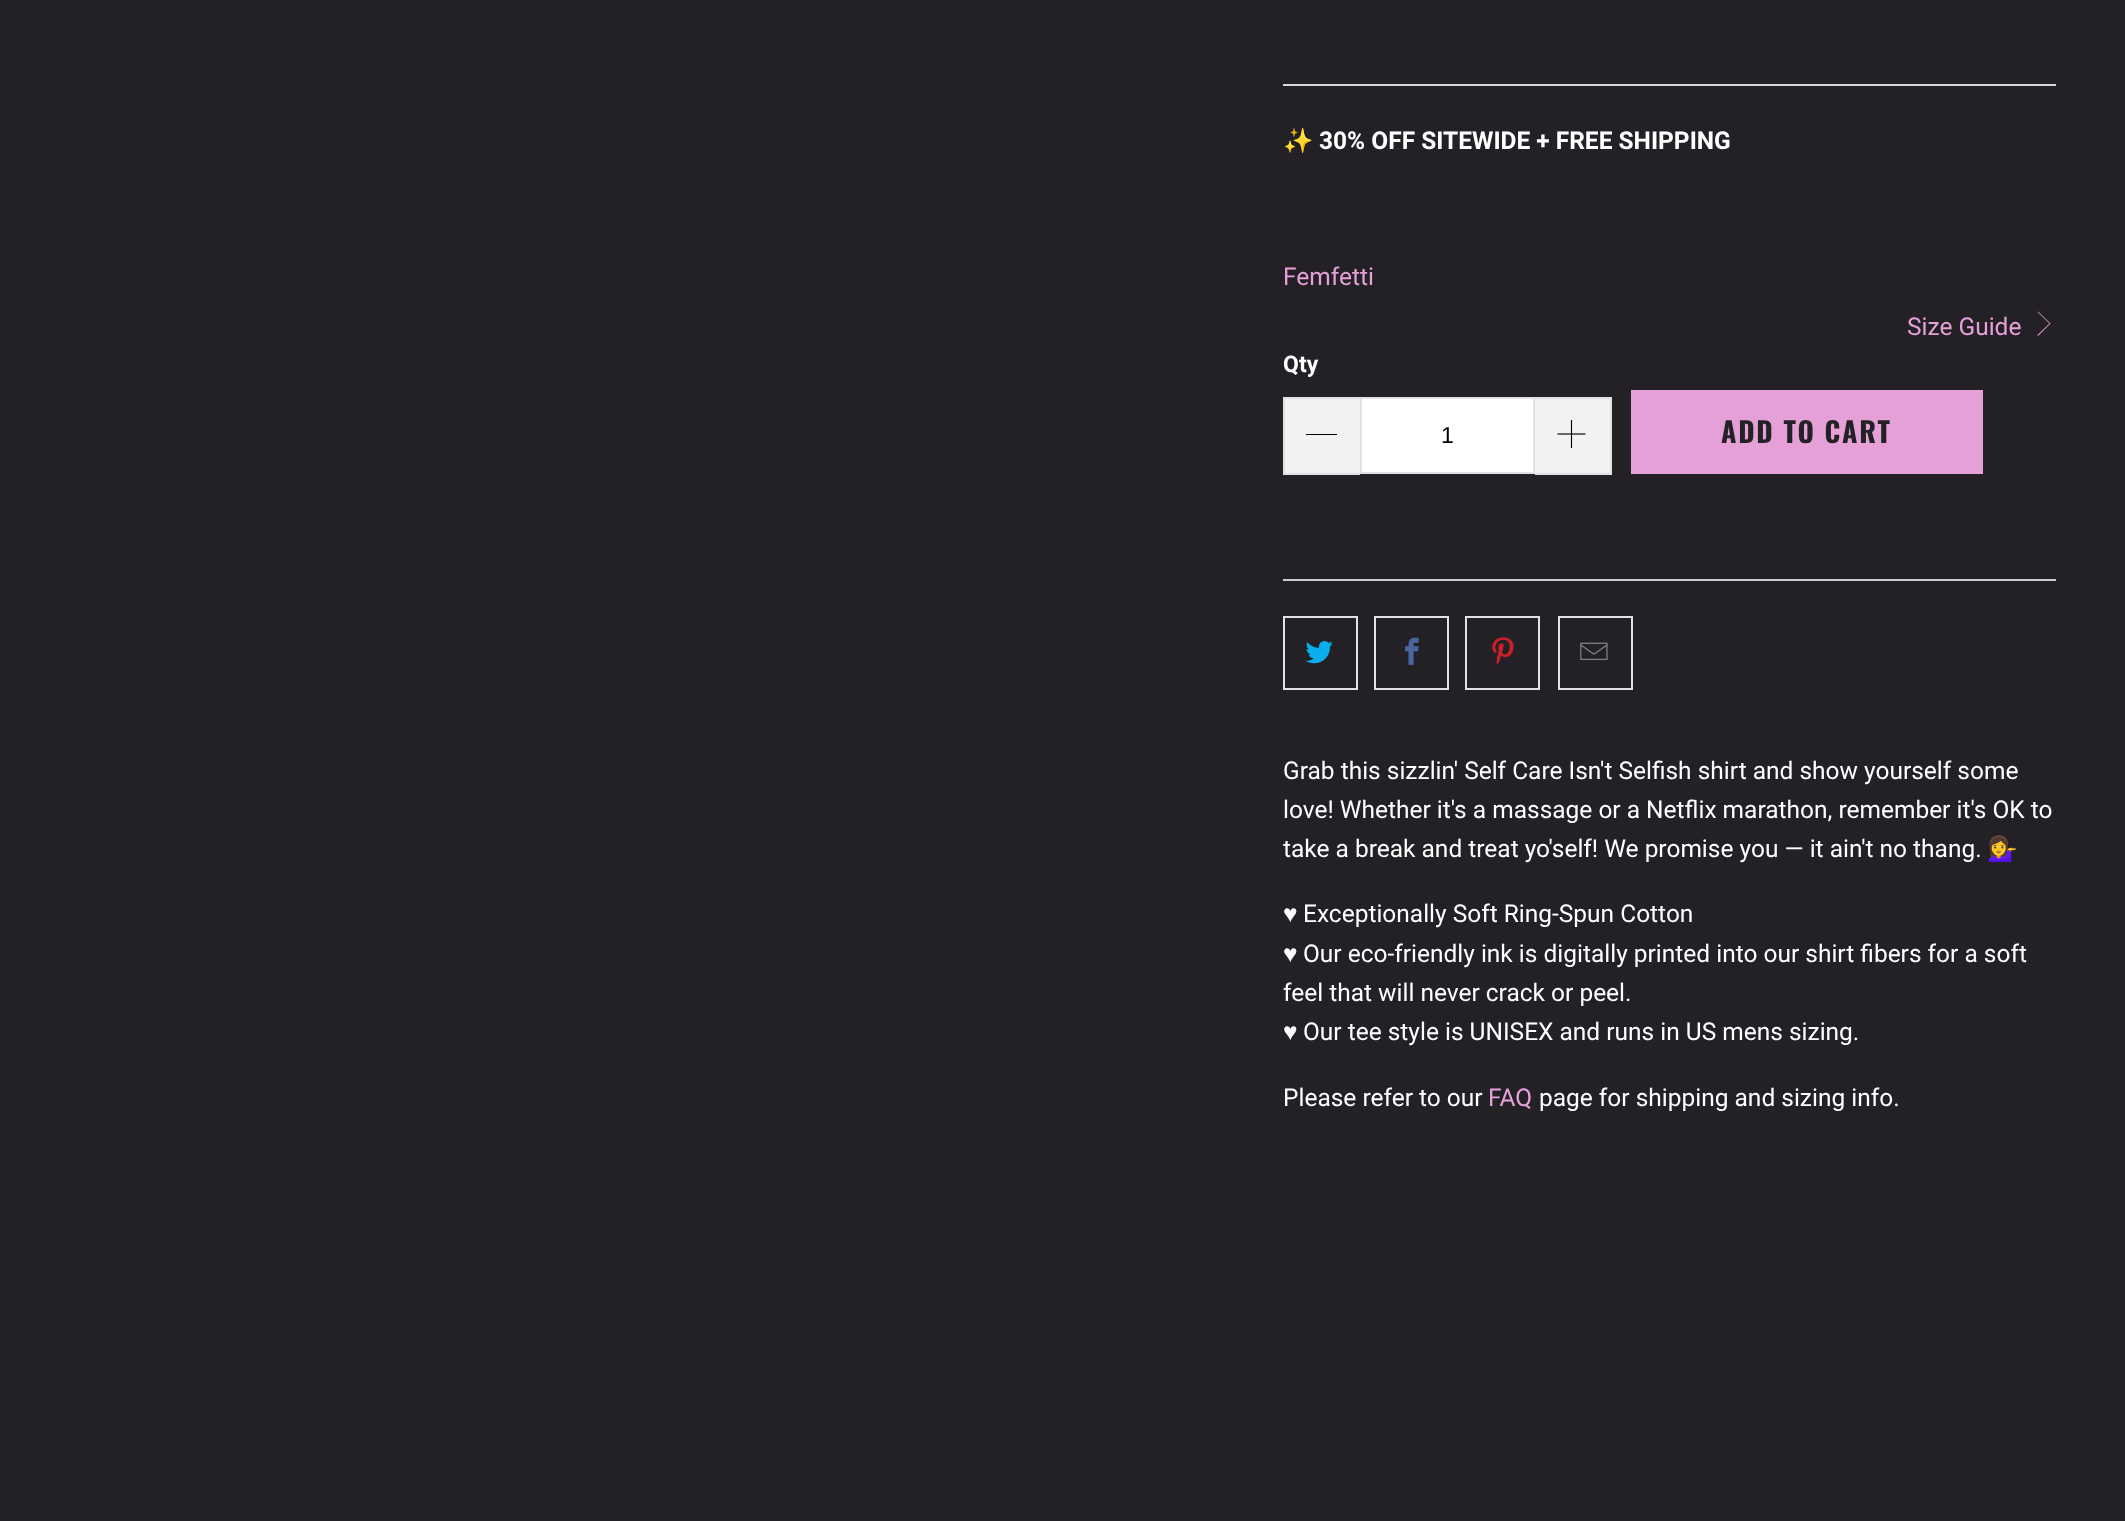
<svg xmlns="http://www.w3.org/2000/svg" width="2125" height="1521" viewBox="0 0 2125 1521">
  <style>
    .t1 { font: bold 24.5px Noto Color Emoji; fill: #fff; }
    .t2 { font: bold 24.5px Roboto; fill: #fff; }
    .t3 { font: 24.5px Roboto; fill: #e5a0d7; }
    .t4 { font: bold 23px Roboto; fill: #fff; }
    .t5 { font: 23px Liberation Sans; fill: #000; }
    .t6 { font: bold 28px Oswald; letter-spacing: 1.75px; fill: #232026; }
    .t7 { font: 24.5px Roboto; fill: #fff; }
    .t8 { font: 24.5px Noto Color Emoji; fill: #fff; }
    .t9 { font: 24.5px Liberation Sans; fill: #fff; }
  </style>
  <rect width="100%" height="100%" fill="#232026"/>
  <rect x="1283" y="84" width="773" height="2" fill="#d7d7d7"/>
  <text x="1283" y="149" class="t1">✨</text>
  <text x="1319" y="149" class="t2">30% OFF SITEWIDE + FREE SHIPPING</text>
  <text x="1283" y="285" class="t3">Femfetti</text>
  <text x="1907" y="335" class="t3">Size Guide</text>
  <path d="M2038 336L2037.5 335L2049.5 323.5L2037.5 312L2038 311.5L2050.5 323.5Z" fill="#e5a0d7"/>
  <text x="1283" y="372" class="t4">Qty</text>
  <rect x="1285" y="399" width="75" height="74" fill="#f2f2f2"/>
  <rect x="1283" y="397" width="77" height="2" fill="#e2e2e2"/>
  <rect x="1283" y="473" width="77" height="2" fill="#e2e2e2"/>
  <rect x="1283" y="397" width="2" height="77" fill="#e2e2e2"/>
  <rect x="1306" y="434" width="31" height="1" fill="#000"/>
  <rect x="1361" y="398" width="173" height="75" fill="#fff" stroke="#e2e2e2" stroke-width="2"/>
  <text x="1441" y="443" class="t5">1</text>
  <rect x="1535" y="399" width="75" height="74" fill="#f2f2f2"/>
  <rect x="1535" y="397" width="77" height="2" fill="#e2e2e2"/>
  <rect x="1610" y="397" width="2" height="77" fill="#e2e2e2"/>
  <rect x="1535" y="473" width="77" height="2" fill="#e2e2e2"/>
  <image x="1557" y="420" width="29" height="28" href="images/1.png"/>
  <rect x="1631" y="390" width="352" height="84" fill="#e5a0d7"/>
  <text x="1721" y="443" class="t6">ADD TO CART</text>
  <rect x="1283" y="579" width="773" height="2" fill="#ccc"/>
  <rect x="1284" y="617" width="73" height="72" fill="none" stroke="#e2e2e2" stroke-width="2"/>
  <image x="1305" y="641" width="28" height="23" href="images/2.png"/>
  <rect x="1375" y="617" width="73" height="72" fill="none" stroke="#e2e2e2" stroke-width="2"/>
  <image x="1405" y="637" width="14" height="28" href="images/3.png"/>
  <rect x="1466" y="617" width="73" height="72" fill="none" stroke="#e2e2e2" stroke-width="2"/>
  <image x="1492" y="637" width="22" height="28" href="images/4.png"/>
  <rect x="1559" y="617" width="73" height="72" fill="none" stroke="#e2e2e2" stroke-width="2"/>
  <image x="1580" y="642" width="28" height="18" href="images/5.png"/>
  <text x="1283" y="779" class="t7">Grab this sizzlin' Self Care Isn't Selfish shirt and show yourself some</text>
  <text x="1283" y="818" class="t7">love! Whether it's a massage or a Netflix marathon, remember it's OK to</text>
  <text x="1283" y="857" class="t7">take a break and treat yo'self! We promise you — it ain't no thang.</text>
  <text x="1987" y="857" class="t8">💁‍♀️</text>
  <text x="1283" y="922" class="t9">♥</text>
  <text x="1303" y="922" class="t7">Exceptionally Soft Ring-Spun Cotton</text>
  <text x="1283" y="962" class="t9">♥</text>
  <text x="1303" y="962" class="t7">Our eco-friendly ink is digitally printed into our shirt fibers for a soft</text>
  <text x="1283" y="1001" class="t7">feel that will never crack or peel.</text>
  <text x="1283" y="1040" class="t9">♥</text>
  <text x="1303" y="1040" class="t7">Our tee style is UNISEX and runs in US mens sizing.</text>
  <text x="1283" y="1106" class="t7">Please refer to our</text>
  <text x="1488" y="1106" class="t3">FAQ</text>
  <text x="1539" y="1106" class="t7">page for shipping and sizing info.</text>
</svg>
